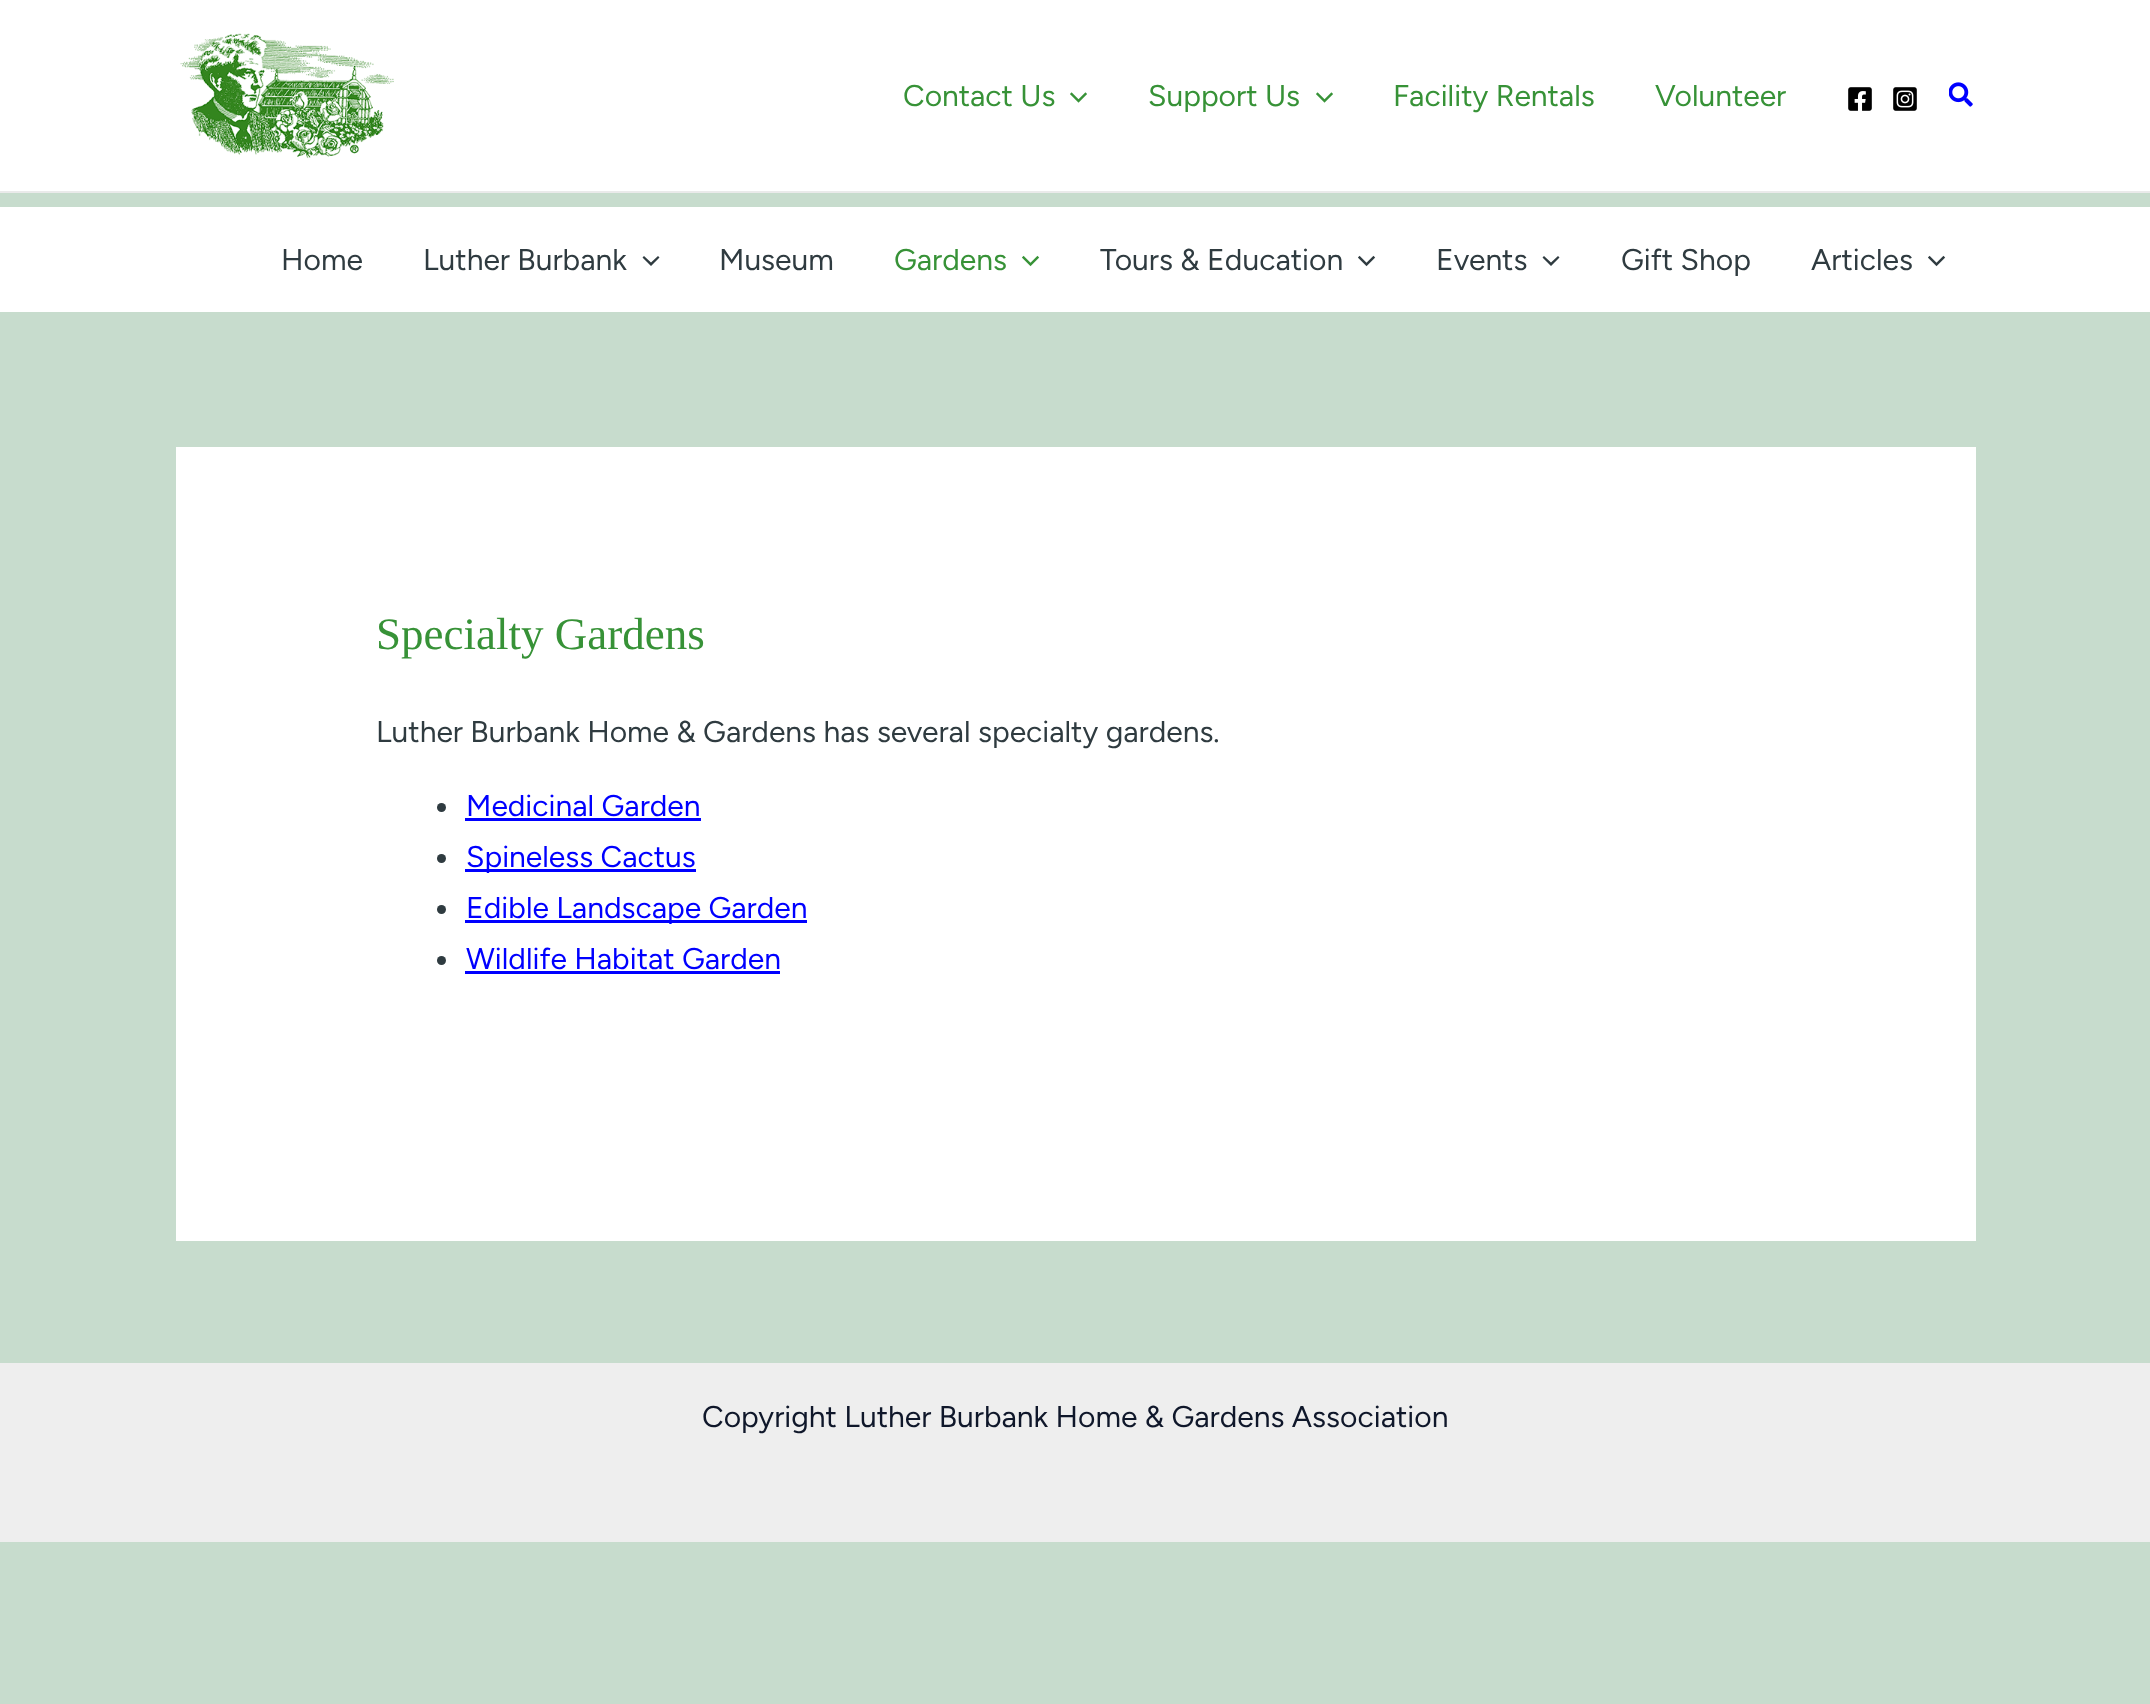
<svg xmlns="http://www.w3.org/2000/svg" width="2150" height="1704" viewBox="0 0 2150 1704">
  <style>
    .t1 { font: 300 30px Figtree; fill: #379237; }
    .t2 { font: 300 30px Figtree; fill: #2f3b40; }
    .t3 { font: 45px Liberation Serif; fill: #379237; }
    .t4 { font: 300 30px Figtree; fill: #00f; }
    .t5 { font: 300 30px Figtree; fill: #0f172a; }
  </style>
  <rect width="100%" height="100%" fill="#c7dccd"/>
  <rect x="0" y="0" width="2150" height="191" fill="#fff"/>
  <rect x="0" y="191" width="2150" height="2" fill="#eaeaea"/>
  <image x="180" y="33" width="214" height="126" href="images/1.png"/>
  <text x="903" y="106" class="t1">Contact Us</text>
  <image x="1070" y="92" width="17" height="11" href="images/2.png"/>
  <text x="1148" y="106" class="t1">Support Us</text>
  <image x="1316" y="92" width="17" height="11" href="images/2.png"/>
  <text x="1393" y="106" class="t1">Facility Rentals</text>
  <text x="1655" y="106" class="t1">Volunteer</text>
  <image x="1848" y="87" width="24" height="24" href="images/3.png"/>
  <image x="1893" y="87" width="24" height="24" href="images/4.png"/>
  <image x="1949" y="82" width="24" height="25" href="images/5.png"/>
  <rect x="0" y="207" width="2150" height="105" fill="#fff"/>
  <text x="281" y="270" class="t2">Home</text>
  <text x="423" y="270" class="t2">Luther Burbank</text>
  <path d="M642.5 257.5L651 266L659.5 257.5L658 256L651 262.5L644 256Z" fill="#2f3b40"/>
  <text x="719" y="270" class="t2">Museum</text>
  <text x="894" y="270" class="t1">Gardens</text>
  <image x="1022" y="255" width="18" height="12" href="images/6.png"/>
  <text x="1100" y="270" class="t2">Tours &amp; Education</text>
  <image x="1358" y="255" width="18" height="12" href="images/7.png"/>
  <text x="1436" y="270" class="t2">Events</text>
  <path d="M1542.5 257.5L1551 266L1559.5 257.5L1558 256L1551 262.5L1544 256Z" fill="#2f3b40"/>
  <text x="1621" y="270" class="t2">Gift Shop</text>
  <text x="1811" y="270" class="t2">Articles</text>
  <image x="1928" y="255" width="18" height="12" href="images/7.png"/>
  <rect x="176" y="447" width="1800" height="794" fill="#fff"/>
  <text x="376" y="649" class="t3">Specialty Gardens</text>
  <text x="376" y="742" class="t2">Luther Burbank Home &amp; Gardens has several specialty gardens.</text>
  <circle cx="441.5" cy="807.5" r="4.5" fill="#2f3b40"/>
  <text x="466" y="816" class="t4">Medicinal Garden</text>
  <rect x="465" y="818" width="236" height="3" fill="#00f"/>
  <circle cx="441.5" cy="858.5" r="4.5" fill="#2f3b40"/>
  <rect x="465" y="869" width="231" height="3" fill="#00f"/>
  <text x="466" y="867" class="t4">Spineless Cactus</text>
  <circle cx="441.5" cy="909.5" r="4.5" fill="#2f3b40"/>
  <rect x="465" y="920" width="342" height="3" fill="#00f"/>
  <text x="466" y="918" class="t4">Edible Landscape Garden</text>
  <circle cx="441.5" cy="960.5" r="4.5" fill="#2f3b40"/>
  <text x="466" y="969" class="t4">Wildlife Habitat Garden</text>
  <rect x="465" y="971" width="315" height="3" fill="#00f"/>
  <rect x="0" y="1363" width="2150" height="179" fill="#eee"/>
  <text x="702" y="1427" class="t5">Copyright Luther Burbank Home &amp; Gardens Association</text>
</svg>
